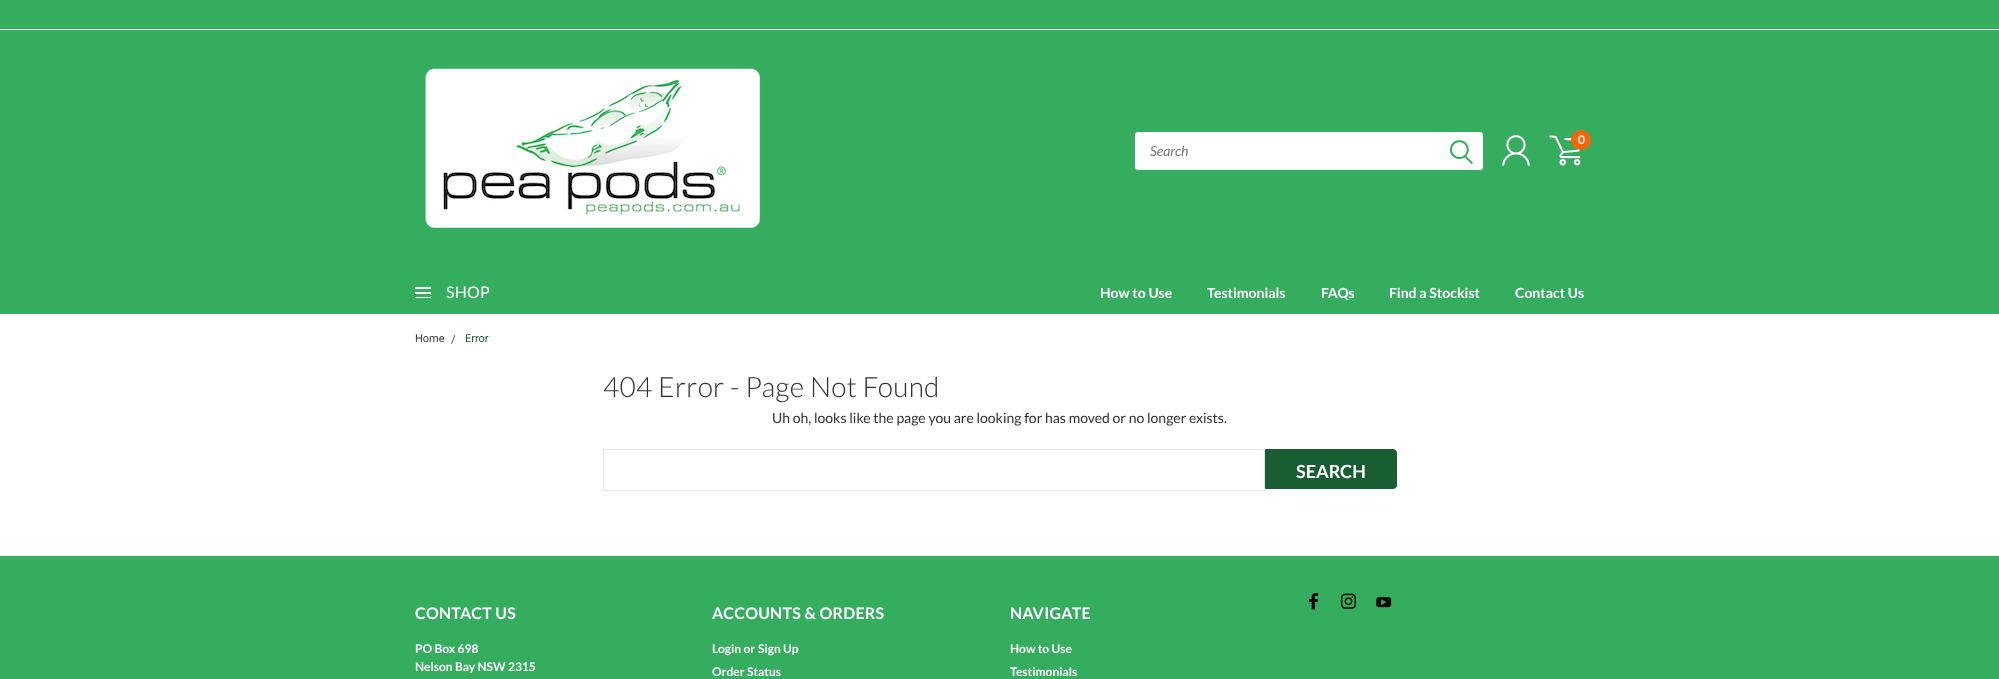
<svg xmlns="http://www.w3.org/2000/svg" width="1999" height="679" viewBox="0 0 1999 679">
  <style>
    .t1 { font: bold 12px Lato; fill: #fff; }
    .t2 { font: italic 14px Lato; fill: #767676; }
    .t3 { font: 16px Lato; letter-spacing: 0.25px; fill: #fff; }
    .t4 { font: bold 14px Lato; fill: #fff; }
    .t5 { font: 11px Roboto; fill: #393939; }
    .t6 { font: 11px Roboto; fill: #185d34; }
    .t7 { font: 300 28px Lato; letter-spacing: 0.25px; fill: #2f2f2b; }
    .t8 { font: 14px Lato; fill: #2f2f2b; }
    .t9 { font: bold 18px Lato; fill: #fff; }
    .t10 { font: bold 16px Lato; letter-spacing: 0.25px; fill: #fff; }
  </style>
  <rect width="100%" height="100%" fill="#fff"/>
  <rect x="0" y="0" width="1999" height="314" fill="#34ad5e"/>
  <rect x="0" y="29" width="1999" height="1" fill="#ebebeb"/>
  <image x="425" y="68" width="336" height="162" href="images/1.png"/>
  <image x="1502" y="135" width="28" height="31" href="images/2.png"/>
  <image x="1549" y="135" width="32" height="31" href="images/3.png"/>
  <circle cx="1581" cy="140" r="10" fill="#fd6404"/>
  <text x="1578" y="144" class="t1">0</text>
  <rect x="1134.5" y="131.5" width="349" height="39" rx="3.5" fill="#fff" stroke="#34ad5e"/>
  <text x="1150" y="156" class="t2">Search</text>
  <image x="1450" y="140" width="23" height="25" href="images/4.png"/>
  <rect x="415" y="287" width="16" height="2" fill="#fff"/>
  <rect x="415" y="292" width="16" height="2" fill="#fff"/>
  <rect x="415" y="297" width="16" height="1" fill="#fff"/>
  <text x="446" y="298" class="t3">SHOP</text>
  <text x="1100" y="298" class="t4">How to Use</text>
  <text x="1207" y="298" class="t4">Testimonials</text>
  <text x="1321" y="298" class="t4">FAQs</text>
  <text x="1389" y="298" class="t4">Find a Stockist</text>
  <text x="1515" y="298" class="t4">Contact Us</text>
  <text x="415" y="342" class="t5">Home</text>
  <text x="451" y="343" class="t5">/</text>
  <text x="465" y="342" class="t6">Error</text>
  <text x="603" y="397" class="t7">404 Error - Page Not Found</text>
  <text x="772" y="423" class="t8">Uh oh, looks like the page you are looking for has moved or no longer exists.</text>
  <rect x="603.5" y="449.5" width="661" height="41" fill="none" stroke="#e5e5e5"/>
  <path d="M1265.5 449.5H1393C1395 449.5 1396.5 451 1396.5 453V485C1396.5 487 1395 488.5 1393 488.5H1265.5Z" fill="#185d34" stroke="#185d34"/>
  <text x="1296" y="478" class="t9">SEARCH</text>
  <rect x="0" y="556" width="1999" height="123" fill="#34ad5e"/>
  <rect x="0" y="555" width="1999" height="1" fill="#ebebeb"/>
  <image x="1308" y="593" width="11" height="17" href="images/5.png"/>
  <image x="1340" y="593" width="17" height="16" href="images/6.png"/>
  <image x="1376" y="597" width="16" height="11" href="images/7.png"/>
  <text x="415" y="619" class="t10">CONTACT US</text>
  <text x="415" y="653" class="t1">PO Box 698</text>
  <text x="415" y="671" class="t1">Nelson Bay NSW 2315</text>
  <text x="712" y="619" class="t10">ACCOUNTS &amp; ORDERS</text>
  <text x="712" y="653" class="t1">Login or</text>
  <text x="758" y="653" class="t1">Sign Up</text>
  <text x="712" y="676" class="t1">Order Status</text>
  <text x="1010" y="619" class="t10">NAVIGATE</text>
  <text x="1010" y="653" class="t1">How to Use</text>
  <text x="1010" y="676" class="t1">Testimonials</text>
</svg>
